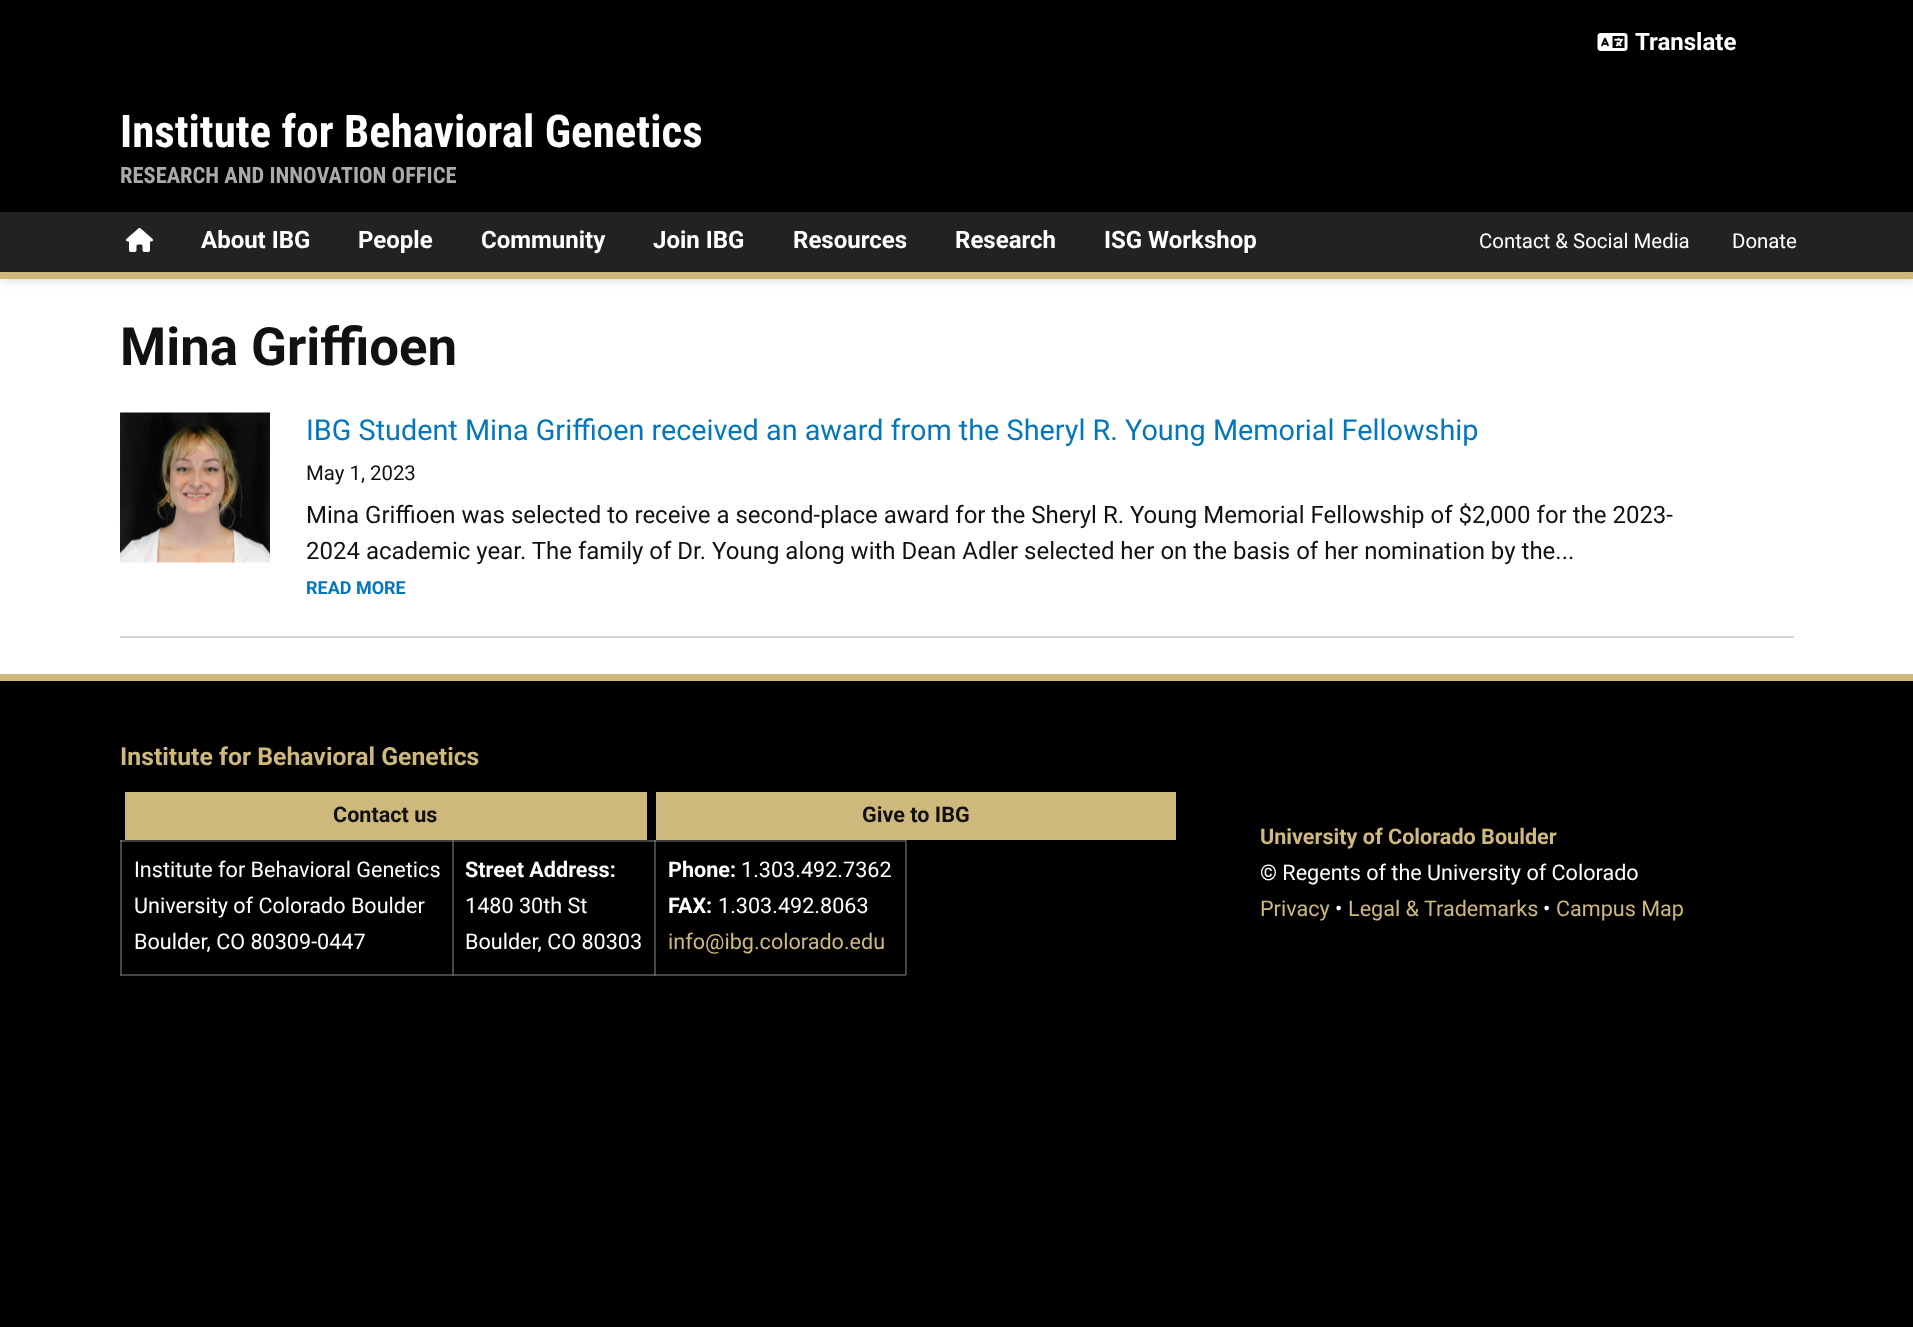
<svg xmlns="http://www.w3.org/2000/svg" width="1913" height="1327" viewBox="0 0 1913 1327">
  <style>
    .t1 { font: bold 24px Roboto; fill: #fff; }
    .t2 { font: bold 45px Roboto Condensed; fill: #fff; }
    .t3 { font: bold 22.5px Roboto Condensed; fill: #aaa; }
    .t4 { font: 20.4px Roboto; fill: #fff; }
    .t5 { font: bold 52.75px Roboto; fill: #111; }
    .t6 { font: 28.8px Roboto; fill: #0277bd; }
    .t7 { font: 20.4px Roboto; fill: #111; }
    .t8 { font: 24px Roboto; fill: #111; }
    .t9 { font: bold 18px Roboto; fill: #0277bd; }
    .t10 { font: bold 24.8px Roboto; fill: #cfb87c; }
    .t11 { font: bold 21.6px Roboto; fill: #111; }
    .t12 { font: 21.6px Roboto; fill: #fff; }
    .t13 { font: bold 21.6px Roboto; fill: #fff; }
    .t14 { font: 21.6px Roboto; fill: #cfb87c; }
    .t15 { font: bold 21.6px Roboto; fill: #cfb87c; }
  </style>
  <rect width="100%" height="100%" fill="#fff"/>
  <rect x="0" y="0" width="1913" height="84" fill="#000"/>
  <image x="1597" y="33" width="31" height="18" href="images/1.png"/>
  <text x="1635" y="50" class="t1">Translate</text>
  <rect x="0" y="215" width="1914" height="67" fill="#0000001a" filter="blur(4px)"/>
  <rect x="0" y="84" width="1913" height="128" fill="#000"/>
  <text x="120" y="147" class="t2">Institute for Behavioral Genetics</text>
  <text x="120" y="183" class="t3">RESEARCH AND INNOVATION OFFICE</text>
  <rect x="0" y="212" width="1913" height="60" fill="#222"/>
  <rect x="0" y="272" width="1913" height="7" fill="#cfb87c"/>
  <image x="126" y="228" width="27" height="24" href="images/2.png"/>
  <text x="201" y="248" class="t1">About IBG</text>
  <text x="358" y="248" class="t1">People</text>
  <text x="481" y="248" class="t1">Community</text>
  <text x="653" y="248" class="t1">Join IBG</text>
  <text x="793" y="248" class="t1">Resources</text>
  <text x="955" y="248" class="t1">Research</text>
  <text x="1104" y="248" class="t1">ISG Workshop</text>
  <text x="1479" y="248" class="t4">Contact &amp; Social Media</text>
  <text x="1732" y="248" class="t4">Donate</text>
  <text x="120" y="365" class="t5">Mina Griffioen</text>
  <rect x="120" y="636" width="1674" height="2" fill="#d5d5d5"/>
  <image x="120" y="412" width="150" height="151" href="images/3.png"/>
  <text x="306" y="440" class="t6">IBG Student Mina Griffioen received an award from the Sheryl R. Young Memorial Fellowship</text>
  <text x="306" y="480" class="t7">May 1, 2023</text>
  <text x="306" y="523" class="t8">Mina Griffioen was selected to receive a second-place award for the Sheryl R. Young Memorial Fellowship of $2,000 for the 2023-</text>
  <text x="306" y="559" class="t8">2024 academic year. The family of Dr. Young along with Dean Adler selected her on the basis of her nomination by the...</text>
  <text x="306" y="594" class="t9">READ MORE</text>
  <rect x="0" y="681" width="1913" height="646" fill="#000"/>
  <rect x="452" y="840" width="2" height="135" fill="#464646"/>
  <rect x="654" y="840" width="2" height="135" fill="#464646"/>
  <rect x="120" y="840" width="2" height="135" fill="#464646"/>
  <rect x="120" y="974" width="786" height="2" fill="#464646"/>
  <rect x="452" y="974" width="1" height="2" fill="#595959"/>
  <rect x="452" y="974" width="2" height="1" fill="#666"/>
  <rect x="452" y="974" width="1" height="1" fill="#6f6f6f"/>
  <rect x="654" y="975" width="2" height="1" fill="#595959"/>
  <rect x="654" y="974" width="2" height="1" fill="#6f6f6f"/>
  <rect x="120" y="974" width="2" height="1" fill="#666"/>
  <rect x="905" y="840" width="2" height="135" fill="#464646"/>
  <rect x="905" y="974" width="1" height="1" fill="#666"/>
  <rect x="0" y="674" width="1913" height="7" fill="#cfb87c"/>
  <text x="120" y="765" class="t10">Institute for Behavioral Genetics</text>
  <rect x="120" y="840" width="786" height="2" fill="#474747"/>
  <rect x="452" y="840" width="2" height="2" fill="#676767"/>
  <rect x="452" y="840" width="1" height="2" fill="#6f6f6f"/>
  <rect x="120" y="840" width="2" height="2" fill="#676767"/>
  <rect x="125" y="794" width="522" height="48" fill="#00000033" filter="blur(1.5px)"/>
  <rect x="125" y="792" width="522" height="48" fill="#cfb87c"/>
  <text x="333" y="822" class="t11">Contact us</text>
  <rect x="654" y="840" width="2" height="2" fill="#6f6f6f"/>
  <rect x="905" y="840" width="1" height="2" fill="#676767"/>
  <rect x="656" y="794" width="520" height="48" fill="#00000033" filter="blur(1.5px)"/>
  <rect x="656" y="792" width="520" height="48" fill="#cfb87c"/>
  <text x="862" y="822" class="t11">Give to IBG</text>
  <text x="134" y="877" class="t12">Institute for Behavioral Genetics</text>
  <text x="134" y="913" class="t12">University of Colorado Boulder</text>
  <text x="134" y="949" class="t12">Boulder, CO 80309-0447</text>
  <text x="465" y="877" class="t13">Street Address:</text>
  <text x="465" y="913" class="t12">1480 30th St</text>
  <text x="465" y="949" class="t12">Boulder, CO 80303</text>
  <text x="668" y="877" class="t13">Phone:</text>
  <text x="741" y="877" class="t12">1.303.492.7362</text>
  <text x="668" y="913" class="t13">FAX:</text>
  <text x="718" y="913" class="t12">1.303.492.8063</text>
  <text x="668" y="949" class="t14">info@ibg.colorado.edu</text>
  <text x="1260" y="844" class="t15">University of Colorado Boulder</text>
  <text x="1260" y="880" class="t12">© Regents of the University of Colorado</text>
  <text x="1260" y="916" class="t14">Privacy</text>
  <text x="1335" y="916" class="t12">•</text>
  <text x="1348" y="916" class="t14">Legal &amp; Trademarks</text>
  <text x="1543" y="916" class="t12">•</text>
  <text x="1556" y="916" class="t14">Campus Map</text>
</svg>
